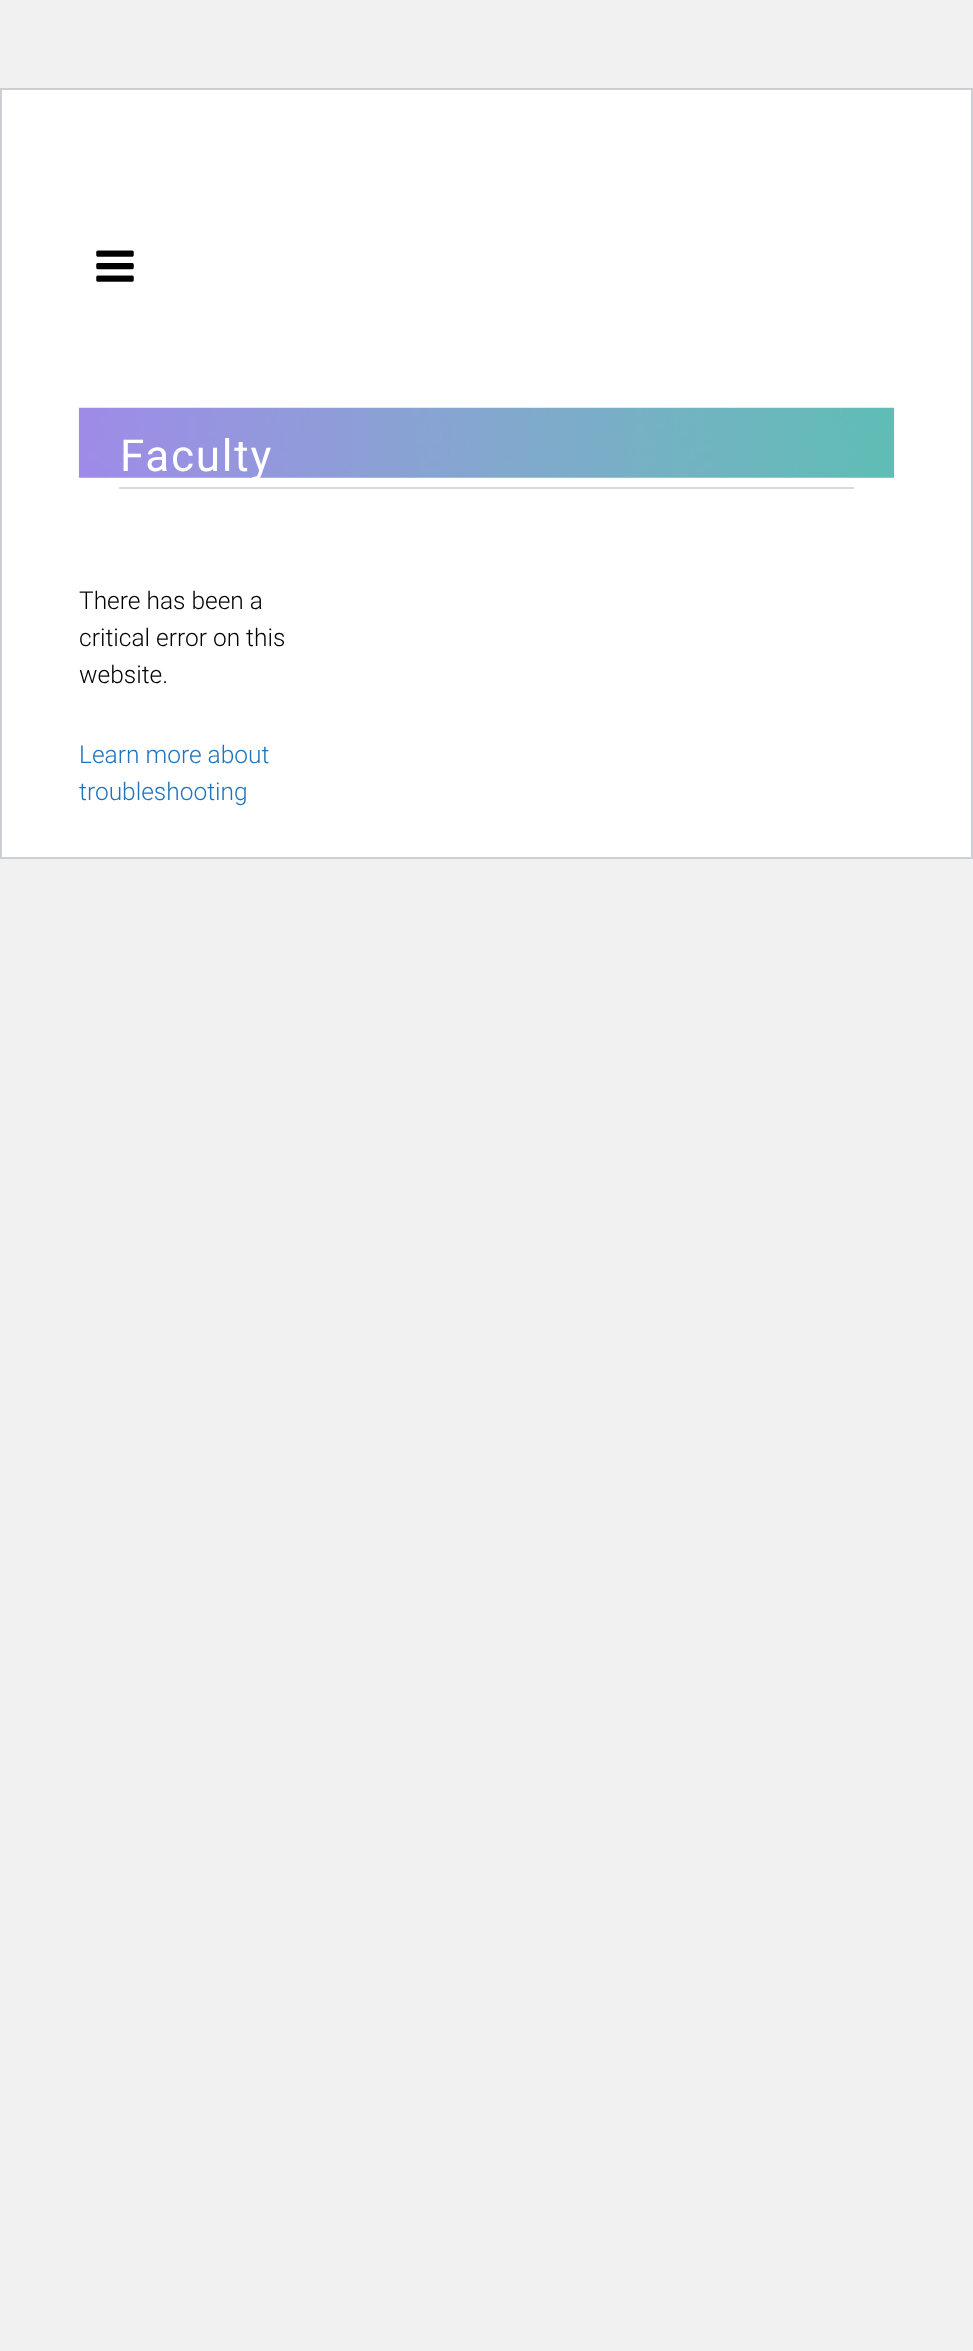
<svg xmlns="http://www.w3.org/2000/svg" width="973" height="2351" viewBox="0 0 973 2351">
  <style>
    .t1 { font: 44px Roboto; letter-spacing: 1.75px; fill: #fff; }
    .t2 { font: 300 24.5px Roboto; fill: #000; }
    .t3 { font: 300 24.5px Roboto; fill: #1e73be; }
  </style>
  <rect width="100%" height="100%" fill="#f1f1f1"/>
  <rect x="1" y="89" width="971" height="769" fill="#fff" stroke="#ccd0d4" stroke-width="2"/>
  <image x="96" y="250" width="38" height="32" href="images/1.png"/>
  <image x="78" y="407" width="817" height="71" href="images/2.png"/>
  <rect x="119" y="487" width="735" height="2" fill="#dadada"/>
  <text x="120" y="471" class="t1">Faculty</text>
  <text x="79" y="609" class="t2">There has been a</text>
  <text x="79" y="646" class="t2">critical error on this</text>
  <text x="79" y="683" class="t2">website.</text>
  <text x="79" y="763" class="t3">Learn more about</text>
  <text x="79" y="800" class="t3">troubleshooting</text>
</svg>
